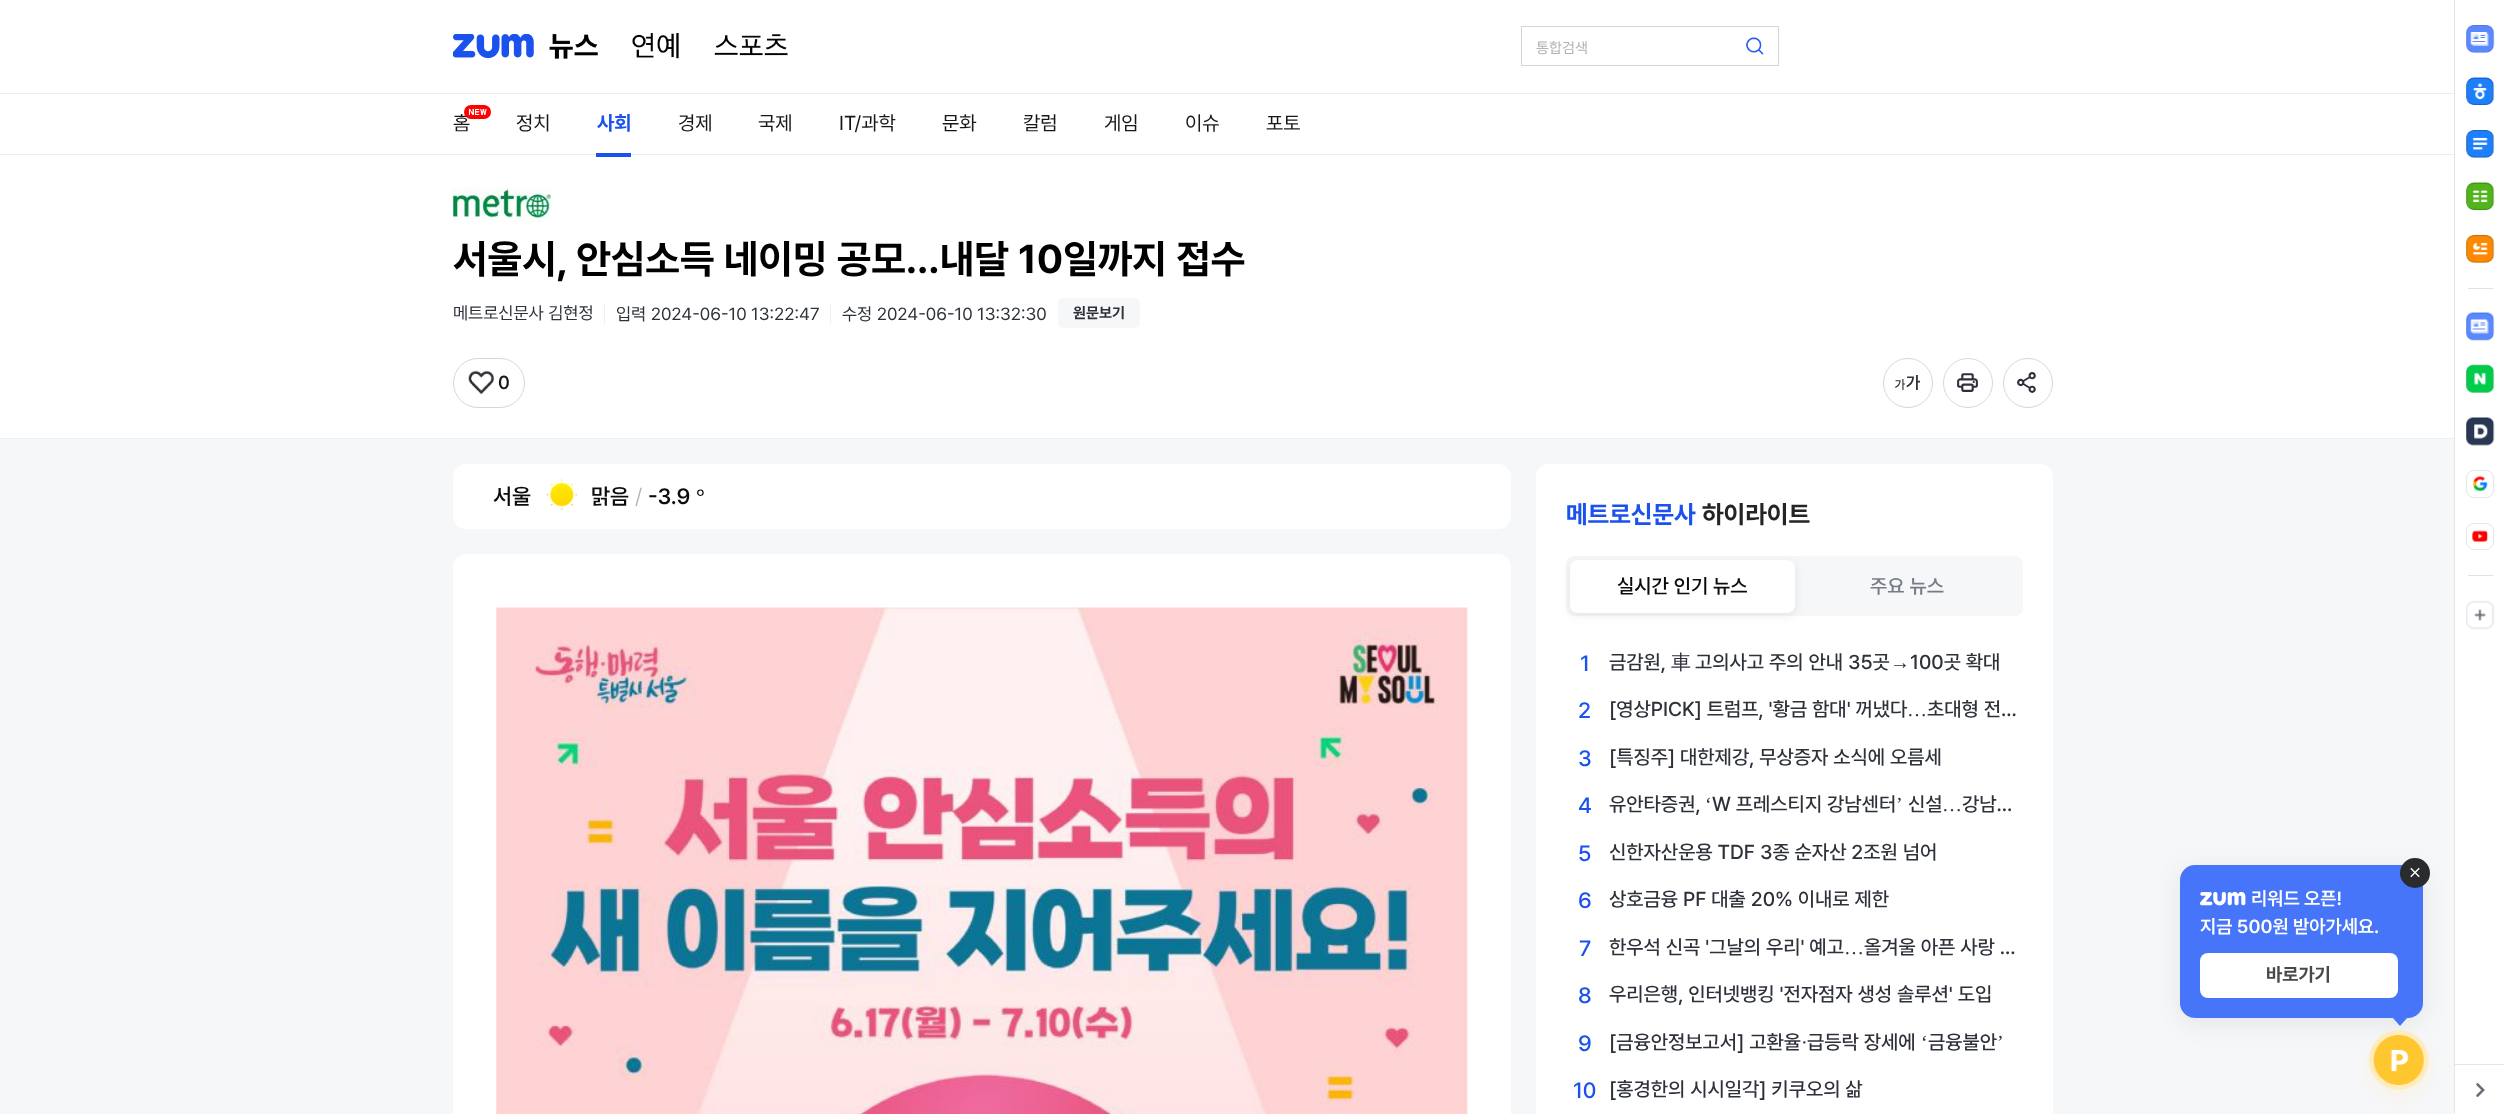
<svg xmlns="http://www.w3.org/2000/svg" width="2504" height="1114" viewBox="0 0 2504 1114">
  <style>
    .t1 { font: 15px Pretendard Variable; fill: #b2b2b2; }
    .t2 { font: 20px Pretendard Variable; fill: #161716; }
    .t3 { font: bold 20px Pretendard Variable; fill: #1b52ed; }
    .t4 { font: bold 40px Pretendard Variable; fill: #000; }
    .t5 { font: 17.5px Pretendard Variable; fill: #2d3139; }
    .t6 { font: bold 15px Pretendard Variable; fill: #2d3139; }
    .t7 { font: 500 18.75px Pretendard Variable; fill: #161716; }
    .t8 { font: 500 22px Pretendard Variable; fill: #0c0c0d; }
    .t9 { font: 300 22px Pretendard Variable; fill: #acb1b9; }
    .t10 { font: bold 22px Liberation Serif; fill: #0c0c0d; }
    .t11 { font: bold 25px Pretendard Variable; fill: #1b52ed; }
    .t12 { font: bold 25px Pretendard Variable; fill: #232424; }
    .t13 { font: 500 20px Pretendard Variable; fill: #0c0c0d; }
    .t14 { font: 500 20px Pretendard Variable; fill: #777d88; }
    .t15 { font: 500 22px 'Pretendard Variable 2'; fill: #1b52ed; }
    .t16 { font: 500 20px 'Pretendard Variable 2'; fill: #2d3139; }
    .t17 { font: 500 20px WenQuanYi Zen Hei; fill: #2d3139; }
    .t18 { font: 20px Liberation Serif; fill: #2d3139; }
    .t19 { font: 600 18.75px Pretendard Variable; fill: #fff; }
    .t20 { font: bold 18.75px Pretendard Variable; fill: #494949; }
  </style>
  <rect width="100%" height="100%" fill="#f6f7f9"/>
  <rect x="0" y="0" width="2454" height="154" fill="#fff"/>
  <rect x="0" y="154" width="2454" height="1" fill="#ededed"/>
  <image x="453" y="34" width="81" height="25" href="images/1.png"/>
  <image x="549" y="33" width="49" height="26" href="images/2.png"/>
  <image x="632" y="33" width="47" height="26" href="images/3.png"/>
  <image x="714" y="34" width="74" height="22" href="images/4.png"/>
  <rect x="1521.5" y="26.5" width="257" height="39" fill="none" stroke="#d1d6db"/>
  <text x="1536" y="53" class="t1">통합검색</text>
  <image x="1746" y="37" width="18" height="18" href="images/5.png"/>
  <rect x="0" y="93" width="2454" height="1" fill="#ededed"/>
  <text x="453" y="130" class="t2">홈</text>
  <rect x="464" y="105" width="27" height="14" rx="7" fill="#f00"/>
  <image x="468" y="108" width="19" height="7" href="images/6.png"/>
  <text x="516" y="130" class="t2">정치</text>
  <text x="597" y="130" class="t3">사회</text>
  <rect x="0" y="155" width="2454" height="283" fill="#fff"/>
  <rect x="596" y="153" width="35" height="4" fill="#1b52ed"/>
  <text x="678" y="130" class="t2">경제</text>
  <text x="758" y="130" class="t2">국제</text>
  <text x="839" y="130" class="t2">IT/과학</text>
  <text x="942" y="130" class="t2">문화</text>
  <text x="1023" y="130" class="t2">칼럼</text>
  <text x="1104" y="130" class="t2">게임</text>
  <text x="1185" y="130" class="t2">이슈</text>
  <text x="1266" y="130" class="t2">포토</text>
  <rect x="0" y="438" width="2454" height="1" fill="#eeeff2"/>
  <image x="452" y="187" width="101" height="35" href="images/7.png"/>
  <text x="453" y="273" class="t4">서울시, 안심소득 네이밍 공모...내달 10일까지 접수</text>
  <text x="453" y="319" class="t5">메트로신문사 김현정</text>
  <rect x="604" y="304" width="1" height="20" fill="#eeeff2"/>
  <text x="616" y="320" class="t5">입력 2024-06-10 13:22:47</text>
  <rect x="830" y="304" width="1" height="20" fill="#eeeff2"/>
  <text x="842" y="320" class="t5">수정 2024-06-10 13:32:30</text>
  <rect x="1058" y="298" width="82" height="30" rx="5" fill="#f6f7f9"/>
  <text x="1073" y="318" class="t6">원문보기</text>
  <rect x="453.5" y="358.5" width="71" height="49" rx="24.5" fill="none" stroke="#d5d7dd"/>
  <image x="468" y="370" width="26" height="25" href="images/8.png"/>
  <text x="498" y="389" class="t7">0</text>
  <circle cx="1908" cy="383" r="24.5" fill="none" stroke="#d5d7dd"/>
  <image x="1895" y="375" width="25" height="15" href="images/9.png"/>
  <circle cx="1968" cy="383" r="24.5" fill="none" stroke="#d5d7dd"/>
  <image x="1957" y="373" width="21" height="19" href="images/10.png"/>
  <circle cx="2028" cy="383" r="24.5" fill="none" stroke="#d5d7dd"/>
  <image x="2017" y="372" width="19" height="21" href="images/11.png"/>
  <rect x="453" y="464" width="1058" height="65" rx="13" fill="#fff"/>
  <text x="493" y="504" class="t8">서울</text>
  <image x="546" y="479" width="32" height="32" href="images/12.png"/>
  <text x="591" y="504" class="t8">맑음</text>
  <text x="635" y="504" class="t9">/</text>
  <text x="648" y="504" class="t8">-3.9</text>
  <text x="696" y="504" class="t10">°</text>
  <rect x="453" y="554" width="1058" height="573" rx="13" fill="#fff"/>
  <image x="496" y="607" width="972" height="507" href="images/13.png"/>
  <rect x="1536" y="464" width="517" height="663" rx="13" fill="#fff"/>
  <text x="1566" y="523" class="t11">메트로신문사</text>
  <text x="1702" y="523" class="t12">하이라이트</text>
  <rect x="1566" y="556" width="457" height="60" rx="8" fill="#f6f7f9"/>
  <rect x="1570" y="563" width="225" height="52" rx="8" fill="#22252b1a" filter="blur(5px)"/>
  <rect x="1570" y="560" width="225" height="53" rx="8" fill="#fff"/>
  <text x="1617" y="593" class="t13">실시간 인기 뉴스</text>
  <text x="1870" y="593" class="t14">주요 뉴스</text>
  <text x="1580" y="671" class="t15">1</text>
  <text x="1609" y="669" class="t16">금감원,</text>
  <text x="1671" y="669" class="t17">車</text>
  <text x="1695" y="669" class="t16">고의사고 주의 안내 35곳</text>
  <text x="1890" y="669" class="t18">→</text>
  <text x="1910" y="669" class="t16">100곳 확대</text>
  <text x="1578" y="718" class="t15">2</text>
  <text x="1609" y="716" class="t16">[영상PICK] 트럼프, '황금 함대' 꺼냈다</text>
  <text x="1907" y="716" class="t18">…</text>
  <text x="1927" y="716" class="t16">초대형 전...</text>
  <text x="1578" y="766" class="t15">3</text>
  <text x="1609" y="764" class="t16">[특징주] 대한제강, 무상증자 소식에 오름세</text>
  <text x="1578" y="813" class="t15">4</text>
  <text x="1609" y="811" class="t16">유안타증권,</text>
  <text x="1705" y="811" class="t18">‘</text>
  <text x="1712" y="811" class="t16">W 프레스티지 강남센터</text>
  <text x="1896" y="811" class="t18">’</text>
  <text x="1908" y="811" class="t16">신설</text>
  <text x="1962" y="811" class="t16">강남...</text>
  <text x="1942" y="811" class="t18">…</text>
  <text x="1578" y="861" class="t15">5</text>
  <text x="1609" y="859" class="t16">신한자산운용 TDF 3종 순자산 2조원 넘어</text>
  <text x="1578" y="908" class="t15">6</text>
  <text x="1609" y="906" class="t16">상호금융 PF 대출 20% 이내로 제한</text>
  <text x="1579" y="956" class="t15">7</text>
  <text x="1609" y="954" class="t16">한우석 신곡 '그날의 우리' 예고</text>
  <text x="1844" y="954" class="t18">…</text>
  <text x="1864" y="954" class="t16">올겨울 아픈 사랑 ...</text>
  <text x="1578" y="1003" class="t15">8</text>
  <text x="1609" y="1001" class="t16">우리은행, 인터넷뱅킹 '전자점자 생성 솔루션' 도입</text>
  <text x="1578" y="1051" class="t15">9</text>
  <text x="1609" y="1049" class="t16">[금융안정보고서] 고환율</text>
  <text x="1807" y="1049" class="t16">급등락 장세에</text>
  <text x="1921" y="1049" class="t18">‘</text>
  <text x="1928" y="1049" class="t16">금융불안</text>
  <text x="1997" y="1049" class="t18">’</text>
  <text x="1801" y="1049" class="t18">·</text>
  <text x="1573" y="1098" class="t15">10</text>
  <text x="1609" y="1096" class="t16">[홍경한의 시시일각] 키쿠오의 삶</text>
  <rect x="2180" y="870" width="243" height="153" rx="15" fill="#00000014" filter="blur(12.5px)"/>
  <rect x="2455" y="0" width="49" height="1114" fill="#fff"/>
  <image x="2466" y="312" width="29" height="29" href="images/14.png"/>
  <rect x="2466.5" y="313.5" width="27" height="26" rx="7.5" fill="none" stroke="#0000001a"/>
  <image x="2466" y="364" width="29" height="29" href="images/15.png"/>
  <rect x="2466.5" y="365.5" width="27" height="27" rx="7.5" fill="none" stroke="#0000001a"/>
  <image x="2466" y="417" width="29" height="29" href="images/16.png"/>
  <rect x="2466.5" y="418.5" width="27" height="26" rx="7.5" fill="none" stroke="#0000001a"/>
  <image x="2473" y="476" width="15" height="16" href="images/17.png"/>
  <rect x="2466.5" y="470.5" width="27" height="27" rx="7.5" fill="none" stroke="#e6e6e6"/>
  <image x="2472" y="530" width="16" height="12" href="images/18.png"/>
  <rect x="2466.5" y="523.5" width="27" height="26" rx="7.5" fill="none" stroke="#e6e6e6"/>
  <rect x="2468" y="575" width="25" height="1" fill="#e1e2e4"/>
  <image x="2466" y="600" width="29" height="30" href="images/19.png"/>
  <rect x="2180" y="865" width="243" height="153" rx="15" fill="#4675fa"/>
  <circle cx="2415" cy="873" r="15" fill="#292b2d"/>
  <image x="2410" y="867" width="10" height="11" href="images/20.png"/>
  <image x="2200" y="891" width="46" height="15" href="images/21.png"/>
  <text x="2251" y="905" class="t19">리워드 오픈!</text>
  <text x="2200" y="933" class="t19">지금 500원 받아가세요.</text>
  <rect x="2200" y="953" width="198" height="45" rx="8" fill="#fff"/>
  <text x="2266" y="981" class="t20">바로가기</text>
  <path d="M2392.5 1017.5H2407.5L2400 1026Z" fill="#4675fa"/>
  <rect x="2369" y="1038" width="60" height="60" rx="30" fill="#ffecbd4d" filter="blur(7.5px)"/>
  <image x="2368" y="1030" width="61" height="60" href="images/22.png"/>
  <rect x="2454" y="0" width="1" height="1114" fill="#e5e5e5"/>
  <image x="2466" y="25" width="29" height="28" href="images/23.png"/>
  <rect x="2466.5" y="25.5" width="27" height="27" rx="7.5" fill="none" stroke="#0000001a"/>
  <image x="2466" y="77" width="29" height="28" href="images/24.png"/>
  <rect x="2466.5" y="78.5" width="27" height="26" rx="7.5" fill="none" stroke="#0000001a"/>
  <image x="2466" y="130" width="29" height="28" href="images/25.png"/>
  <rect x="2466.5" y="130.5" width="27" height="27" rx="7.5" fill="none" stroke="#0000001a"/>
  <image x="2466" y="182" width="29" height="28" href="images/26.png"/>
  <rect x="2466.5" y="183.5" width="27" height="26" rx="7.5" fill="none" stroke="#0000001a"/>
  <image x="2466" y="235" width="29" height="28" href="images/27.png"/>
  <rect x="2466.5" y="235.5" width="27" height="27" rx="7.5" fill="none" stroke="#0000001a"/>
  <rect x="2468" y="288" width="25" height="1" fill="#e1e2e4"/>
  <rect x="2455" y="1064" width="49" height="1" fill="#e5e5e5"/>
  <image x="2476" y="1083" width="9" height="14" href="images/28.png"/>
</svg>
